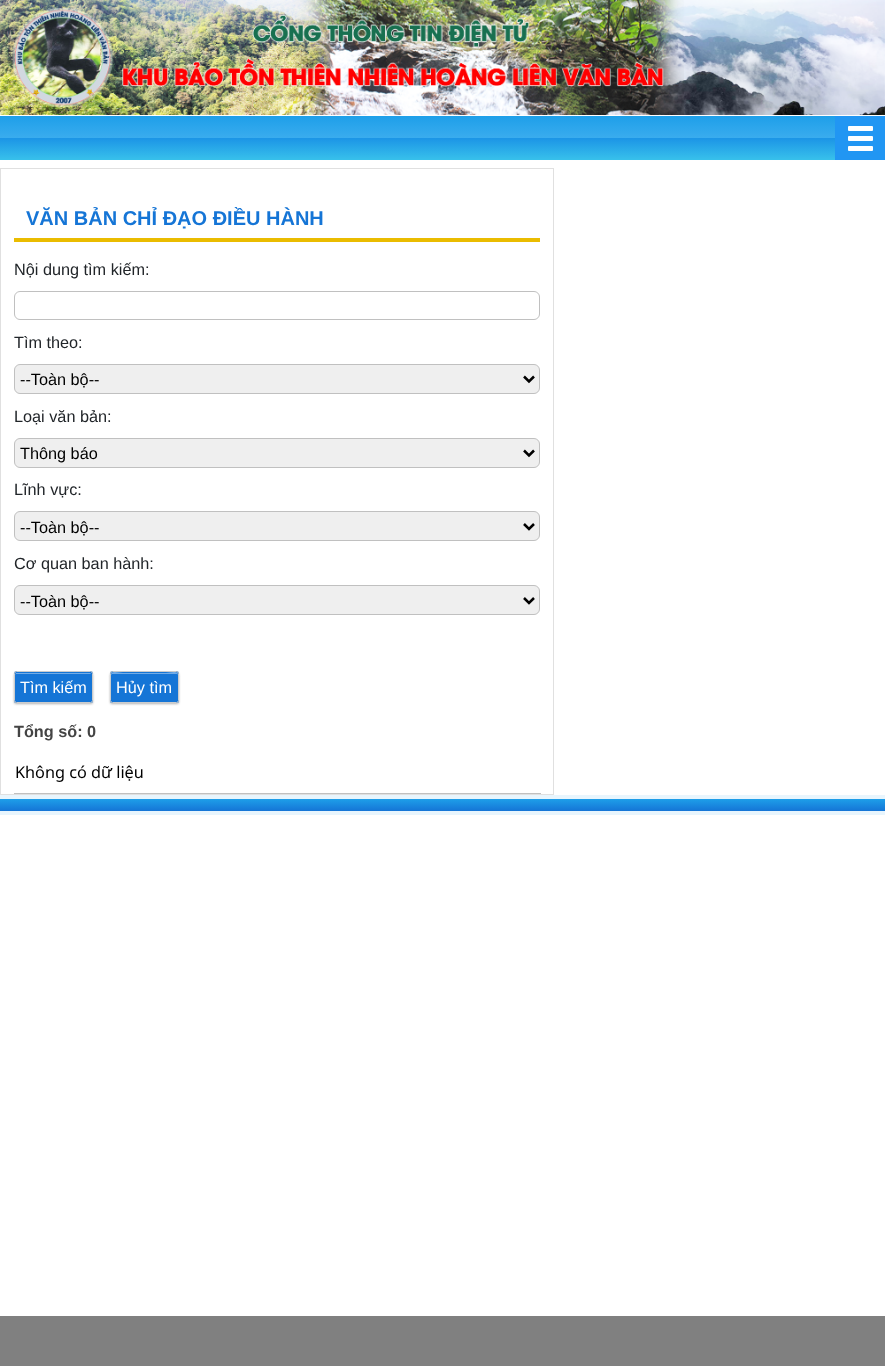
<svg xmlns="http://www.w3.org/2000/svg" width="885" height="1366" viewBox="0 0 885 1366">
  <style>
    .t1 { font: bold 20px Liberation Sans; fill: #1575d6; }
    .t2 { font: 16.25px Liberation Sans; fill: #212529; }
    .t3 { font: 16.25px Liberation Sans; fill: #000; }
    .t4 { font: 16.25px Liberation Sans; fill: #fff; }
    .t5 { font: bold 16.25px Liberation Sans; fill: #444; }
    .t6 { font: 16.25px Noto Sans; fill: #000; }
  </style>
  <defs>
    <linearGradient id="g1" gradientUnits="userSpaceOnUse" x1="443" y1="116" x2="443" y2="160"><stop offset="0" stop-color="#1e9fe9"/><stop offset="0.5" stop-color="#3aacee"/><stop offset="0.51" stop-color="#1c95e6"/><stop offset="1" stop-color="#38c1eb"/></linearGradient>
    <linearGradient id="g2" gradientUnits="userSpaceOnUse" x1="443" y1="799" x2="443" y2="811"><stop offset="0" stop-color="#1e9fe9"/><stop offset="1" stop-color="#1575d6"/></linearGradient>
  </defs>
  <rect width="100%" height="100%" fill="#fff"/>
  <rect x="0" y="795" width="885" height="20" fill="#e8f5fd"/>
  <image x="0" y="0" width="885" height="115" href="images/1.png"/>
  <rect x="0" y="116" width="835" height="44" fill="url(#g1)"/>
  <rect x="835" y="116" width="50" height="44" fill="#2196f3"/>
  <rect x="848" y="126" width="25" height="5" rx="1" fill="#fff"/>
  <rect x="848" y="136" width="25" height="5" rx="1" fill="#fff"/>
  <rect x="848" y="146" width="25" height="5" rx="1" fill="#fff"/>
  <rect x="0.5" y="168.5" width="553" height="626" fill="none" stroke="#e0e0e0"/>
  <rect x="14" y="238" width="526" height="4" fill="#eabc00"/>
  <text x="26" y="225" class="t1">VĂN BẢN CHỈ ĐẠO ĐIỀU HÀNH</text>
  <text x="14" y="275" class="t2">Nội dung tìm kiếm:</text>
  <rect x="14.5" y="291.5" width="525" height="28" rx="5.5" fill="none" stroke="#c0c0c0"/>
  <text x="14" y="348" class="t2">Tìm theo:</text>
  <rect x="14.5" y="364.5" width="525" height="29" rx="5.5" fill="#efefef" stroke="#c0c0c0"/>
  <path d="M524 376.5L529 381.5L534 376.5" fill="none" stroke="#000" stroke-width="2.5"/>
  <text x="20" y="385" class="t3">--Toàn bộ--</text>
  <text x="14" y="422" class="t2">Loại văn bản:</text>
  <rect x="14.5" y="438.5" width="525" height="29" rx="5.5" fill="#efefef" stroke="#c0c0c0"/>
  <path d="M524 450.5L529 455.5L534 450.5" fill="none" stroke="#000" stroke-width="2.5"/>
  <text x="20" y="459" class="t3">Thông báo</text>
  <text x="14" y="495" class="t2">Lĩnh vực:</text>
  <rect x="14.5" y="511.5" width="525" height="29" rx="5.5" fill="#efefef" stroke="#c0c0c0"/>
  <path d="M524 524L529 529L534 524" fill="none" stroke="#000" stroke-width="2.5"/>
  <text x="20" y="533" class="t3">--Toàn bộ--</text>
  <text x="14" y="569" class="t2">Cơ quan ban hành:</text>
  <rect x="14.5" y="585.5" width="525" height="29" rx="5.5" fill="#efefef" stroke="#c0c0c0"/>
  <path d="M524 598L529 603L534 598" fill="none" stroke="#000" stroke-width="2.5"/>
  <text x="20" y="607" class="t3">--Toàn bộ--</text>
  <rect x="14" y="673" width="79" height="31" rx="2.5" fill="#b3b3b3" filter="blur(1px)"/>
  <rect x="14" y="671" width="79" height="32" rx="2.5" fill="#1575d6"/>
  <path d="M16 674H91V675C91 674 91 673 90 673H16L15 675Z" fill="#73ace6"/>
  <rect x="14.5" y="671.5" width="78" height="31" rx="2" fill="none" stroke="#ccc"/>
  <text x="20" y="693" class="t4">Tìm kiếm</text>
  <rect x="110" y="673" width="69" height="31" rx="2.5" fill="#b3b3b3" filter="blur(1px)"/>
  <rect x="110" y="671" width="69" height="32" rx="2.5" fill="#1575d6"/>
  <path d="M112 674H176C177 674 178 674 178 675C178 670 170 673 166 673H123C119 673 111 670 111 675Z" fill="#73ace6"/>
  <rect x="110.5" y="671.5" width="68" height="31" rx="2" fill="none" stroke="#ccc"/>
  <text x="116" y="693" class="t4">Hủy tìm</text>
  <text x="14" y="737" class="t5">Tổng số: 0</text>
  <rect x="14" y="793" width="527" height="1" fill="#c0c0c0"/>
  <text x="15" y="778" class="t6">Không có dữ liệu</text>
  <rect x="0" y="799" width="885" height="12" fill="url(#g2)"/>
  <rect x="0" y="1316" width="885" height="50" fill="#808080"/>
</svg>
